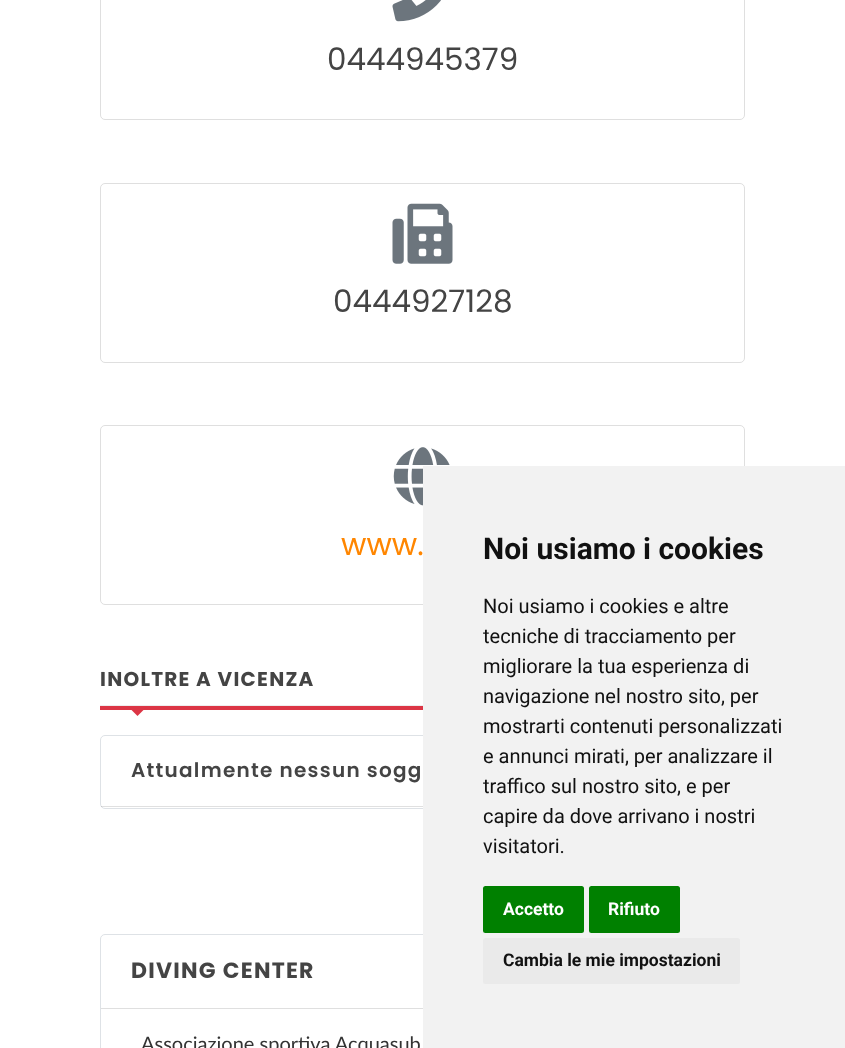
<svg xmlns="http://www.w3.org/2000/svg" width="845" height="1048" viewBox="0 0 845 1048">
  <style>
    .t1 { font: 31px Poppins; fill: #444; }
    .t2 { font: 31px Poppins; fill: #ff8600; }
    .t3 { font: bold 20px Poppins; letter-spacing: 1.25px; fill: #444; }
    .t4 { font: 600 20px Poppins; letter-spacing: 1.25px; fill: #444; }
    .t5 { font: bold 22px Poppins; letter-spacing: 1.25px; fill: #444; }
    .t6 { font: 20px Lato; fill: #333; }
    .t7 { font: bold 30px Roboto; fill: #111; }
    .t8 { font: 20px Roboto; fill: #111; }
    .t9 { font: bold 17.5px Roboto; fill: #fff; }
    .t10 { font: bold 17.5px Roboto; fill: #111; }
  </style>
  <rect width="100%" height="100%" fill="#fff"/>
  <rect x="100.5" y="-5.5" width="644" height="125" rx="4.5" fill="none" stroke="#dfdfdf"/>
  <image x="392" y="0" width="49" height="22" href="images/1.png"/>
  <text x="327" y="70" class="t1">0444945379</text>
  <rect x="100.5" y="183.5" width="644" height="179" rx="4.5" fill="none" stroke="#dfdfdf"/>
  <image x="392" y="203" width="61" height="61" href="images/2.png"/>
  <text x="333" y="312" class="t1">0444927128</text>
  <rect x="100.5" y="425.5" width="644" height="179" rx="4.5" fill="none" stroke="#dfdfdf"/>
  <image x="393" y="447" width="57" height="59" href="images/3.png"/>
  <text x="341" y="555" class="t2">www.</text>
  <text x="100" y="686" class="t3">INOLTRE A VICENZA</text>
  <rect x="100" y="705" width="323" height="1" fill="#eee"/>
  <rect x="100" y="706" width="323" height="4" fill="#dc3545"/>
  <path d="M127.5 706H147.5L137.5 716Z" fill="#dc3545"/>
  <rect x="100.5" y="735.5" width="644" height="73" rx="4.5" fill="none" stroke="#dee2e6"/>
  <rect x="101" y="806" width="322" height="1" fill="#0000001f"/>
  <text x="131" y="777" class="t4">Attualmente nessun sogg</text>
  <rect x="100.5" y="934.5" width="644" height="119" rx="4.5" fill="none" stroke="#dee2e6"/>
  <rect x="101" y="1008" width="322" height="1" fill="#dfdfdf"/>
  <text x="131" y="978" class="t5">DIVING CENTER</text>
  <text x="141" y="1051" class="t6">Associazione sportiva Acquasub</text>
  <rect x="423" y="466" width="422" height="582" fill="#f2f2f2"/>
  <text x="483" y="559" class="t7">Noi usiamo i cookies</text>
  <text x="483" y="613" class="t8">Noi usiamo i cookies e altre</text>
  <text x="483" y="643" class="t8">tecniche di tracciamento per</text>
  <text x="483" y="673" class="t8">migliorare la tua esperienza di</text>
  <text x="483" y="703" class="t8">navigazione nel nostro sito, per</text>
  <text x="483" y="733" class="t8">mostrarti contenuti personalizzati</text>
  <text x="483" y="763" class="t8">e annunci mirati, per analizzare il</text>
  <text x="483" y="793" class="t8">traffico sul nostro sito, e per</text>
  <text x="483" y="823" class="t8">capire da dove arrivano i nostri</text>
  <text x="483" y="853" class="t8">visitatori.</text>
  <rect x="483" y="886" width="101" height="47" rx="2.5" fill="#008000"/>
  <text x="503" y="915" class="t9">Accetto</text>
  <rect x="589" y="886" width="91" height="47" rx="2.5" fill="#008000"/>
  <text x="608" y="915" class="t9">Rifiuto</text>
  <rect x="483" y="938" width="257" height="46" rx="2.5" fill="#eaeaea"/>
  <text x="503" y="966" class="t10">Cambia le mie impostazioni</text>
</svg>
